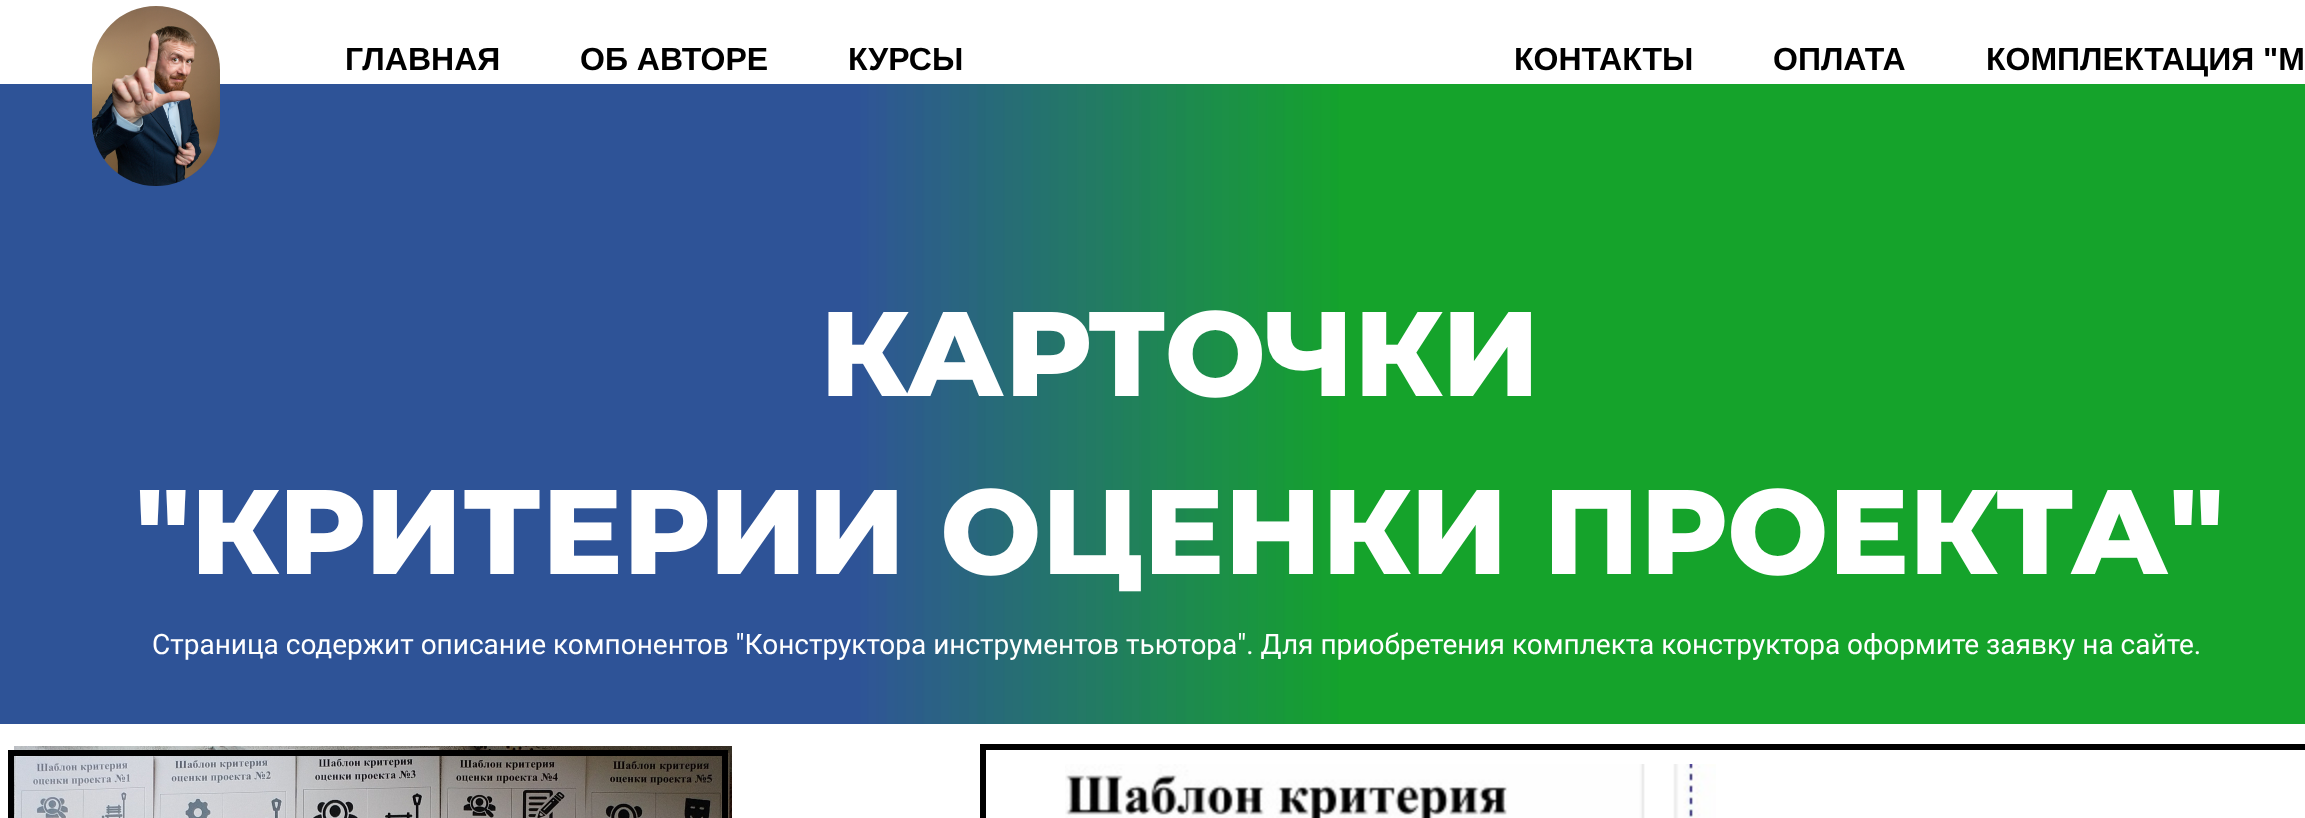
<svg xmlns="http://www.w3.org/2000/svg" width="2305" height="818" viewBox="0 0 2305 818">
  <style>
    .t1 { font: bold 32px Liberation Sans; fill: #000; }
    .t2 { font: 800 120px Montserrat; fill: #fff; }
    .t3 { font: 28px Roboto; fill: #fff; }
  </style>
  <rect width="100%" height="100%" fill="#fff"/>
  <image x="0" y="84" width="2305" height="640" href="images/2.png"/>
  <image x="92" y="6" width="128" height="180" href="images/1.png"/>
  <text x="345" y="70" class="t1">ГЛАВНАЯ</text>
  <text x="580" y="70" class="t1">ОБ АВТОРЕ</text>
  <text x="848" y="70" class="t1">КУРСЫ</text>
  <text x="1514" y="70" class="t1">КОНТАКТЫ</text>
  <text x="1773" y="70" class="t1">ОПЛАТА</text>
  <text x="1986" y="70" class="t1">КОМПЛЕКТАЦИЯ "М</text>
  <text x="820" y="396" class="t2">КАРТОЧКИ</text>
  <text x="135" y="574" class="t2">"КРИТЕРИИ ОЦЕНКИ ПРОЕКТА"</text>
  <text x="152" y="654" class="t3">Страница содержит описание компонентов "Конструктора инструментов тьютора". Для приобретения комплекта конструктора оформите заявку на сайте.</text>
  <image x="14" y="746" width="718" height="72" href="images/3.png"/>
  <image x="1065" y="764" width="651" height="54" href="images/4.png"/>
  <rect x="983" y="747" width="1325" height="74" fill="none" stroke="#000" stroke-width="6"/>
  <rect x="11" y="753" width="714" height="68" fill="none" stroke="#000" stroke-width="6"/>
</svg>
